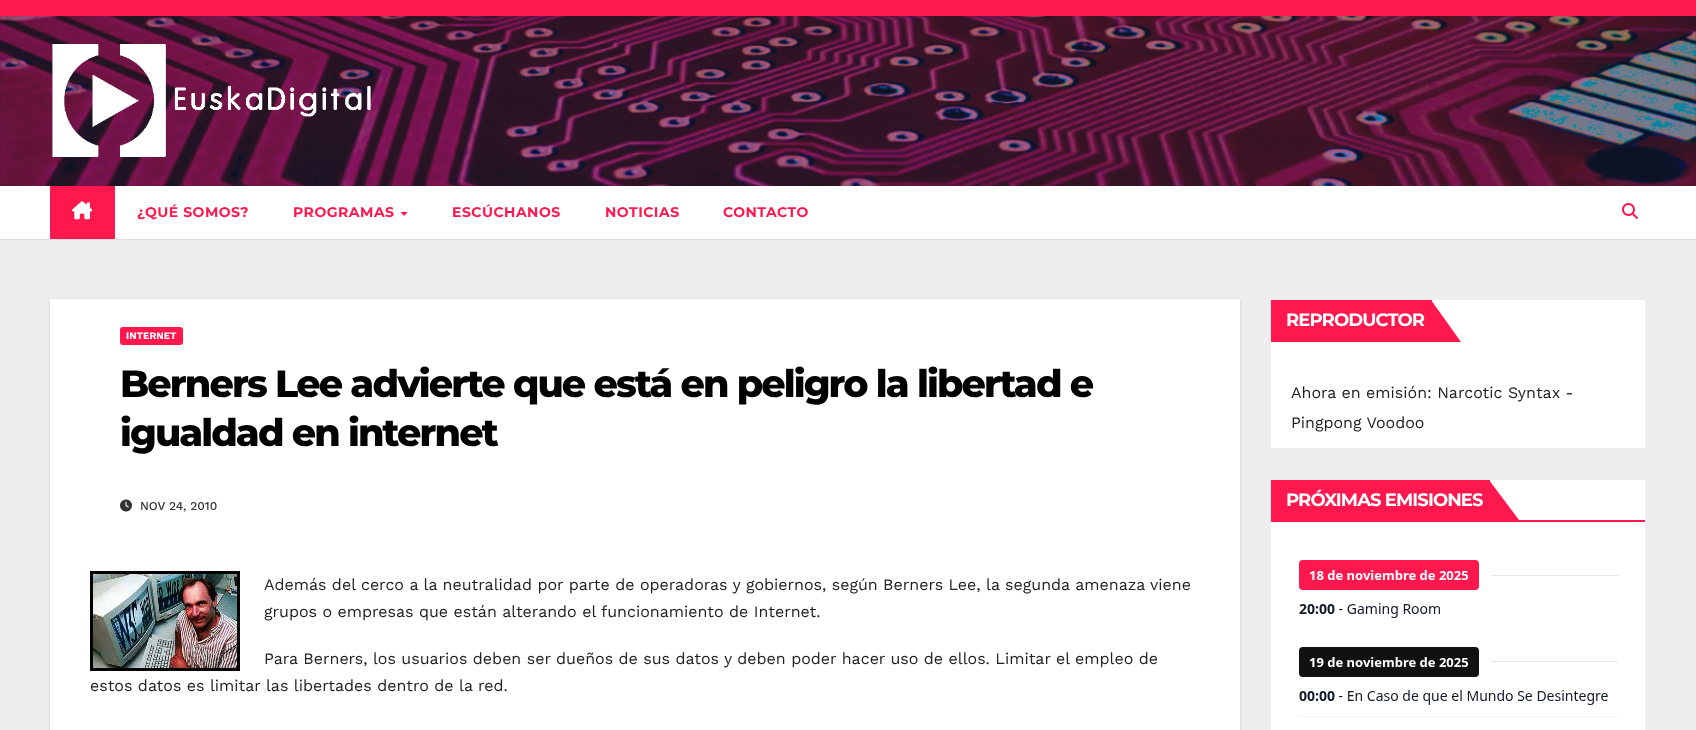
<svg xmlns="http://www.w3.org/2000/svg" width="1696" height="730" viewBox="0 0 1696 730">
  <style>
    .t1 { font: bold 14px Montserrat; letter-spacing: 0.5px; fill: #ff184e; }
    .t2 { font: bold 10px Work Sans; fill: #fff; }
    .t3 { font: 800 38px Montserrat; letter-spacing: -1.9px; fill: #000; }
    .t4 { font: 500 12px Work Sans; fill: #333; }
    .t5 { font: 16px Work Sans; fill: #222; }
    .t6 { font: bold 18px Montserrat; letter-spacing: -0.9px; fill: #fff; }
  </style>
  <rect width="100%" height="100%" fill="#eee"/>
  <rect x="0" y="0" width="1696" height="16" fill="#ff184e"/>
  <image x="0" y="16" width="1696" height="170" href="images/1.png"/>
  <image x="52" y="44" width="319" height="113" href="images/2.png"/>
  <rect x="0" y="239" width="1696" height="1" fill="#ddd"/>
  <rect x="0" y="186" width="1696" height="53" fill="#fff"/>
  <rect x="50" y="186" width="65" height="53" fill="#ff184e"/>
  <image x="72" y="201" width="21" height="19" href="images/3.png"/>
  <text x="137" y="217" class="t1">¿QUÉ SOMOS?</text>
  <text x="293" y="217" class="t1">PROGRAMAS</text>
  <image x="401" y="211" width="7" height="5" href="images/4.png"/>
  <text x="452" y="217" class="t1">ESCÚCHANOS</text>
  <text x="605" y="217" class="t1">NOTICIAS</text>
  <text x="723" y="217" class="t1">CONTACTO</text>
  <image x="1622" y="203" width="16" height="16" href="images/5.png"/>
  <rect x="50" y="300" width="1190" height="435" fill="#00000026" filter="blur(1.5px)"/>
  <rect x="50" y="299" width="1190" height="431" fill="#fff"/>
  <rect x="120" y="327" width="63" height="18" rx="3" fill="#ff184e"/>
  <text x="126" y="339" class="t2">INTERNET</text>
  <text x="120" y="397" class="t3">Berners Lee advierte que está en peligro la libertad e</text>
  <text x="120" y="446" class="t3">igualdad en internet</text>
  <image x="120" y="499" width="12" height="13" href="images/6.png"/>
  <text x="140" y="510" class="t4">NOV 24, 2010</text>
  <image x="90" y="571" width="150" height="100" href="images/7.png"/>
  <text x="264" y="590" class="t5">Además del cerco a la neutralidad por parte de operadoras y gobiernos, según Berners Lee, la segunda amenaza viene</text>
  <text x="264" y="617" class="t5">grupos o empresas que están alterando el funcionamiento de Internet.</text>
  <text x="264" y="664" class="t5">Para Berners, los usuarios deben ser dueños de sus datos y deben poder hacer uso de ellos. Limitar el empleo de</text>
  <text x="90" y="691" class="t5">estos datos es limitar las libertades dentro de la red.</text>
  <rect x="1271" y="300" width="374" height="148" fill="#fff"/>
  <rect x="1271" y="300" width="161" height="42" fill="#ff184e"/>
  <text x="1286" y="326" class="t6">REPRODUCTOR</text>
  <path d="M1431 342V300L1461 342Z" fill="#ff184e"/>
  <text x="1291" y="398" class="t5">Ahora en emisión: Narcotic Syntax -</text>
  <text x="1291" y="428" class="t5">Pingpong Voodoo</text>
  <rect x="1271" y="480" width="374" height="250" fill="#fff"/>
  <rect x="1271" y="520" width="374" height="2" fill="#ff184e"/>
  <rect x="1271" y="480" width="219" height="40" fill="#ff184e"/>
  <text x="1286" y="506" class="t6">PRÓXIMAS EMISIONES</text>
  <path d="M1489 520V480L1519 520Z" fill="#ff184e"/>
  <image x="1299" y="560" width="319" height="157" href="images/8.png"/>
</svg>
